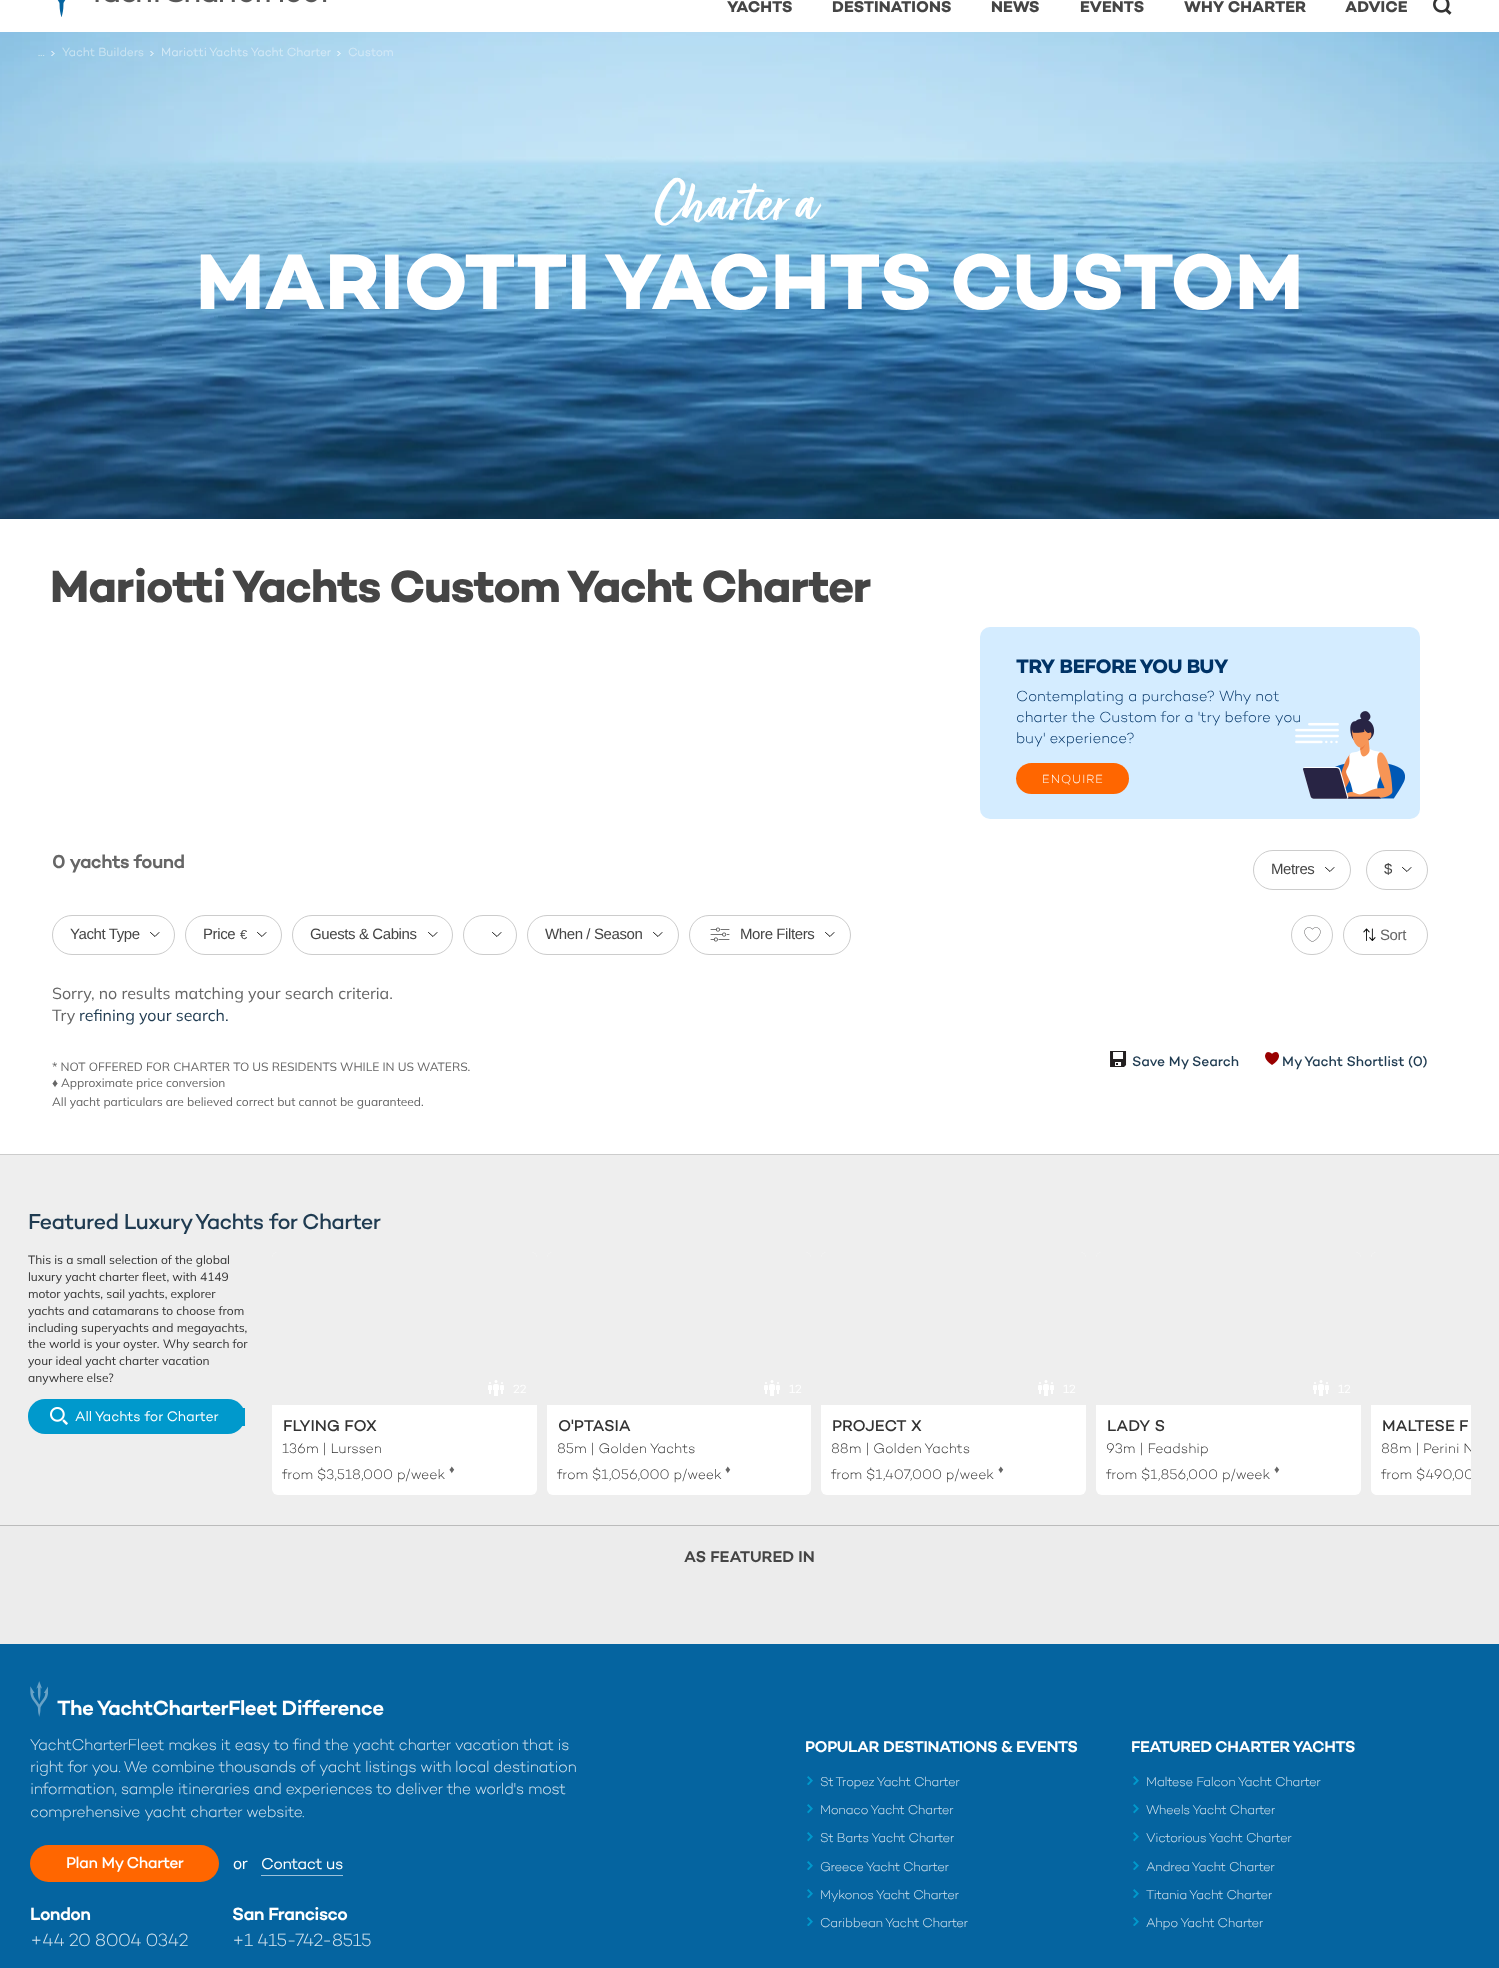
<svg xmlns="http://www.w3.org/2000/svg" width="1499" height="1968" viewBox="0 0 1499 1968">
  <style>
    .t1 { font: bold 16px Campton; fill: #454545; }
    .t2 { font: 12px Campton; fill: #cae4f2; }
    .t3 { font: 12px Campton; fill: #d3e9f6; }
    .t4 { font: bold 63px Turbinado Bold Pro; fill: #fff; }
    .t5 { font: bold 80px Campton; fill: #fff; }
    .t6 { font: bold 46px Campton; letter-spacing: -1.15px; fill: #454545; }
    .t7 { font: bold 20px Campton; letter-spacing: -0.4px; fill: #036; }
    .t8 { font: 300 15px Campton; fill: #036; }
    .t9 { font: 300 12px Campton; letter-spacing: 1px; fill: #fff; }
    .t10 { font: 600 19px Campton; letter-spacing: -0.5px; fill: #666; }
    .t11 { font: 15px Liberation Sans; letter-spacing: -0.4px; fill: #454545; }
    .t12 { font: 13px Liberation Sans; letter-spacing: -0.4px; fill: #454545; }
    .t13 { font: 15px Liberation Sans; letter-spacing: -0.4px; fill: #666; }
    .t14 { font: 16px Mulish; fill: #666; }
    .t15 { font: 16px Mulish; fill: #1f3b51; }
    .t16 { font: 12px Mulish; fill: #666; }
    .t17 { font: 12px Liberation Sans; fill: #666; }
    .t18 { font: 500 14px Campton; fill: #1f3b51; }
    .t19 { font: 500 22px Campton; letter-spacing: -0.55px; fill: #1f3b51; }
    .t20 { font: 12px Mulish; fill: #333; }
    .t21 { font: 14px Campton; fill: #fff; }
    .t22 { font: 12px Campton; fill: #fff; }
    .t23 { font: 500 16px Campton; fill: #333; }
    .t24 { font: 300 14px Campton; fill: #333; }
    .t25 { font: 11px Liberation Sans; fill: #666; }
    .t26 { font: 600 16px Campton; fill: #454545; }
    .t27 { font: 600 21px Campton; letter-spacing: -0.5px; fill: #fff; }
    .t28 { font: 300 16px Campton; letter-spacing: -0.4px; fill: #d7e5ef; }
    .t29 { font: 500 16px Campton; letter-spacing: -0.4px; fill: #fff; }
    .t30 { font: 16px Mulish; letter-spacing: -0.4px; fill: #fff; }
    .t31 { font: 16px Campton; letter-spacing: -0.4px; fill: #fff; }
    .t32 { font: 600 18px Campton; letter-spacing: -0.5px; fill: #fff; }
    .t33 { font: 300 18px Campton; letter-spacing: -0.5px; fill: #d7e5ef; }
    .t34 { font: 600 16px Campton; letter-spacing: -0.4px; fill: #fff; }
    .t35 { font: 300 13px Campton; letter-spacing: -0.3px; fill: #d7e5ef; }
  </style>
  <defs>
    <clipPath id="clip1"><rect x="1381" y="1439" width="90" height="20"/></clipPath>
    <clipPath id="clip2"><rect x="1381" y="1465" width="90" height="19"/></clipPath>
  </defs>
  <rect width="100%" height="100%" fill="#fff"/>
  <image x="57" y="0" width="270" height="17" href="images/1.png"/>
  <text x="727" y="12" class="t1">YACHTS</text>
  <text x="832" y="12" class="t1">DESTINATIONS</text>
  <text x="991" y="12" class="t1">NEWS</text>
  <text x="1080" y="12" class="t1">EVENTS</text>
  <text x="1184" y="12" class="t1">WHY CHARTER</text>
  <text x="1345" y="12" class="t1">ADVICE</text>
  <image x="1433" y="0" width="19" height="15" href="images/2.png"/>
  <image x="0" y="32" width="1499" height="487" href="images/6.png"/>
  <image x="51" y="51" width="4" height="5" href="images/3.png"/>
  <text x="38" y="56" class="t2">...</text>
  <image x="150" y="51" width="4" height="5" href="images/4.png"/>
  <text x="62" y="56" class="t2">Yacht Builders</text>
  <image x="337" y="51" width="4" height="5" href="images/5.png"/>
  <text x="161" y="56" class="t3">Mariotti Yachts Yacht Charter</text>
  <text x="348" y="56" class="t3">Custom</text>
  <text x="654" y="225" class="t4">Charter a</text>
  <text x="196" y="309" class="t5">MARIOTTI YACHTS CUSTOM</text>
  <text x="50" y="602" class="t6">Mariotti Yachts Custom Yacht Charter</text>
  <rect x="980" y="627" width="440" height="192" rx="10" fill="#d4ecff"/>
  <image x="1295" y="711" width="110" height="88" href="images/7.png"/>
  <text x="1016" y="673" class="t7">TRY BEFORE YOU BUY</text>
  <text x="1016" y="701" class="t8">Contemplating a purchase? Why not</text>
  <text x="1016" y="722" class="t8">charter the Custom for a 'try before you</text>
  <text x="1016" y="743" class="t8">buy' experience?</text>
  <rect x="1016" y="763" width="113" height="31" rx="15.5" fill="#f60"/>
  <text x="1042" y="783" class="t9">ENQUIRE</text>
  <text x="52" y="868" class="t10">0 yachts found</text>
  <path d="M1325.5 867.5L1330 871.5L1334 867.5" fill="none" stroke="#000" stroke-width="0.9" stroke-linecap="round" stroke-linejoin="round"/>
  <rect x="1253.5" y="850.5" width="97" height="39" rx="19.5" fill="none" stroke="#ccc"/>
  <text x="1271" y="874" class="t11">Metres</text>
  <path d="M1402.5 867.5L1407 871.5L1411 867.5" fill="none" stroke="#000" stroke-width="0.9" stroke-linecap="round" stroke-linejoin="round"/>
  <rect x="1366.5" y="850.5" width="61" height="39" rx="19.5" fill="none" stroke="#ccc"/>
  <text x="1384" y="874" class="t11">$</text>
  <path d="M150.5 932.5L155 936.5L159 932.5" fill="none" stroke="#000" stroke-width="0.9" stroke-linecap="round" stroke-linejoin="round"/>
  <rect x="52.5" y="915.5" width="122" height="39" rx="19.5" fill="none" stroke="#ccc"/>
  <text x="70" y="939" class="t11">Yacht Type</text>
  <path d="M257.5 932.5L262 936.5L266 932.5" fill="none" stroke="#000" stroke-width="0.9" stroke-linecap="round" stroke-linejoin="round"/>
  <rect x="185.5" y="915.5" width="96" height="39" rx="19.5" fill="none" stroke="#ccc"/>
  <text x="203" y="939" class="t11">Price</text>
  <text x="240" y="939" class="t12">€</text>
  <path d="M428.5 932.5L433 936.5L437 932.5" fill="none" stroke="#000" stroke-width="0.9" stroke-linecap="round" stroke-linejoin="round"/>
  <rect x="292.5" y="915.5" width="160" height="39" rx="19.5" fill="none" stroke="#ccc"/>
  <text x="310" y="939" class="t11">Guests &amp; Cabins</text>
  <path d="M492.5 932.5L497 936.5L501 932.5" fill="none" stroke="#000" stroke-width="0.9" stroke-linecap="round" stroke-linejoin="round"/>
  <rect x="463.5" y="915.5" width="53" height="39" rx="19.5" fill="none" stroke="#ccc"/>
  <path d="M653.5 932.5L658 936.5L662 932.5" fill="none" stroke="#000" stroke-width="0.9" stroke-linecap="round" stroke-linejoin="round"/>
  <rect x="527.5" y="915.5" width="151" height="39" rx="19.5" fill="none" stroke="#ccc"/>
  <text x="545" y="939" class="t11">When / Season</text>
  <path d="M825.5 932.5L830 936.5L834 932.5" fill="none" stroke="#000" stroke-width="0.9" stroke-linecap="round" stroke-linejoin="round"/>
  <rect x="689.5" y="915.5" width="161" height="39" rx="19.5" fill="none" stroke="#ccc"/>
  <image x="710" y="927" width="20" height="15" href="images/8.png"/>
  <text x="740" y="939" class="t11">More Filters</text>
  <image x="1304" y="927" width="17" height="15" href="images/9.png"/>
  <rect x="1291.5" y="915.5" width="41" height="39" rx="19.5" fill="none" stroke="#ccc"/>
  <image x="1363" y="928" width="13" height="13" href="images/10.png"/>
  <rect x="1343.5" y="915.5" width="84" height="39" rx="19.5" fill="none" stroke="#ccc"/>
  <text x="1380" y="940" class="t13">Sort</text>
  <text x="52" y="999" class="t14">Sorry, no results matching your search criteria.</text>
  <text x="52" y="1021" class="t14">Try</text>
  <text x="79" y="1021" class="t15">refining your search.</text>
  <text x="52" y="1071" class="t16">* NOT OFFERED FOR CHARTER TO US RESIDENTS WHILE IN US WATERS.</text>
  <text x="52" y="1087" class="t17">♦︎</text>
  <text x="61" y="1087" class="t16">Approximate price conversion</text>
  <text x="52" y="1106" class="t16">All yacht particulars are believed correct but cannot be guaranteed.</text>
  <image x="1110" y="1051" width="17" height="16" href="images/11.png"/>
  <text x="1132" y="1066" class="t18">Save My Search</text>
  <image x="1265" y="1052" width="14" height="13" href="images/12.png"/>
  <text x="1282" y="1066" class="t18">My Yacht Shortlist (0)</text>
  <rect x="0" y="1155" width="1499" height="370" fill="#eee"/>
  <rect x="0" y="1154" width="1499" height="1" fill="#ccc"/>
  <text x="28" y="1229" class="t19">Featured Luxury Yachts for Charter</text>
  <text x="28" y="1264" class="t20">This is a small selection of the global</text>
  <text x="28" y="1281" class="t20">luxury yacht charter fleet, with 4149</text>
  <text x="28" y="1298" class="t20">motor yachts, sail yachts, explorer</text>
  <text x="28" y="1315" class="t20">yachts and catamarans to choose from</text>
  <text x="28" y="1332" class="t20">including superyachts and megayachts,</text>
  <text x="28" y="1348" class="t20">the world is your oyster. Why search for</text>
  <text x="28" y="1365" class="t20">your ideal yacht charter vacation</text>
  <text x="28" y="1382" class="t20">anywhere else?</text>
  <rect x="28" y="1399" width="217" height="35" rx="17" fill="#09c"/>
  <image x="50" y="1407" width="18" height="18" href="images/13.png"/>
  <rect x="242" y="1408" width="3" height="18" fill="#09c"/>
  <text x="75" y="1421" class="t21">All Yachts for Charter</text>
  <rect x="272" y="1252" width="265" height="243" rx="6" fill="#fff"/>
  <path d="M278 1252H531C534.5 1252 537 1254.5 537 1258V1405H272V1258C272 1254.5 274.5 1252 278 1252Z" fill="#eee"/>
  <image x="488" y="1380" width="16" height="16" href="images/14.png"/>
  <text x="513" y="1393" class="t22">22</text>
  <text x="283" y="1431" class="t23">FLYING FOX</text>
  <text x="282" y="1453" class="t24">136m | Lurssen</text>
  <text x="282" y="1479" class="t24">from $3,518,000 p/week</text>
  <text x="449" y="1473" class="t25">♦︎</text>
  <rect x="547" y="1252" width="264" height="243" rx="6" fill="#fff"/>
  <path d="M553 1252H805C808.5 1252 811 1254.5 811 1258V1405H547V1258C547 1254.5 549.5 1252 553 1252Z" fill="#eee"/>
  <image x="764" y="1380" width="16" height="16" href="images/14.png"/>
  <text x="789" y="1393" class="t22">12</text>
  <text x="558" y="1431" class="t23">O'PTASIA</text>
  <text x="557" y="1453" class="t24">85m | Golden Yachts</text>
  <text x="557" y="1479" class="t24">from $1,056,000 p/week</text>
  <text x="725" y="1473" class="t25">♦︎</text>
  <rect x="821" y="1252" width="265" height="243" rx="6" fill="#fff"/>
  <path d="M827 1252H1080C1083.5 1252 1086 1254.5 1086 1258V1405H821V1258C821 1254.5 823.5 1252 827 1252Z" fill="#eee"/>
  <image x="1038" y="1380" width="16" height="16" href="images/14.png"/>
  <text x="1063" y="1393" class="t22">12</text>
  <text x="832" y="1431" class="t23">PROJECT X</text>
  <text x="831" y="1453" class="t24">88m | Golden Yachts</text>
  <text x="831" y="1479" class="t24">from $1,407,000 p/week</text>
  <text x="998" y="1473" class="t25">♦︎</text>
  <rect x="1096" y="1252" width="265" height="243" rx="6" fill="#fff"/>
  <path d="M1102 1252H1355C1358.5 1252 1361 1254.5 1361 1258V1405H1096V1258C1096 1254.5 1098.5 1252 1102 1252Z" fill="#eee"/>
  <image x="1313" y="1380" width="16" height="16" href="images/14.png"/>
  <text x="1338" y="1393" class="t22">12</text>
  <text x="1107" y="1431" class="t23">LADY S</text>
  <text x="1106" y="1453" class="t24">93m | Feadship</text>
  <text x="1106" y="1479" class="t24">from $1,856,000 p/week</text>
  <text x="1274" y="1473" class="t25">♦︎</text>
  <path d="M1377 1252H1471V1495H1377C1373.5 1495 1371 1492.5 1371 1489V1258C1371 1254.5 1373.5 1252 1377 1252Z" fill="#fff"/>
  <path d="M1377 1252H1471V1405H1371V1258C1371 1254.5 1373.5 1252 1377 1252Z" fill="#eee"/>
  <text x="1382" y="1431" class="t23">MALTESE F</text>
  <text x="1381" y="1453" class="t24">88m |</text>
  <g clip-path="url(#clip1)">
    <text x="1423" y="1453" class="t24">Perini N</text>
  </g>
  <text x="1381" y="1479" class="t24">from</text>
  <g clip-path="url(#clip2)">
    <text x="1416" y="1479" class="t24">$490,00</text>
  </g>
  <rect x="0" y="1526" width="1499" height="118" fill="#ececec"/>
  <rect x="0" y="1525" width="1499" height="1" fill="#bbb"/>
  <text x="684" y="1562" class="t26">AS FEATURED IN</text>
  <rect x="0" y="1644" width="1499" height="324" fill="#0564a0"/>
  <image x="30" y="1681" width="18" height="36" href="images/15.png"/>
  <text x="57" y="1715" class="t27">The YachtCharterFleet Difference</text>
  <text x="30" y="1750" class="t28">YachtCharterFleet makes it easy to find the yacht charter vacation that is</text>
  <text x="30" y="1772" class="t28">right for you. We combine thousands of yacht listings with local destination</text>
  <text x="30" y="1794" class="t28">information, sample itineraries and experiences to deliver the world's most</text>
  <text x="30" y="1817" class="t28">comprehensive yacht charter website.</text>
  <rect x="30" y="1845" width="189" height="37" rx="18.5" fill="#f60"/>
  <text x="66" y="1868" class="t29">Plan My Charter</text>
  <text x="233" y="1869" class="t30">or</text>
  <rect x="261" y="1875" width="82" height="1" fill="#9bc1d9"/>
  <text x="261" y="1869" class="t31">Contact us</text>
  <text x="30" y="1920" class="t32">London</text>
  <text x="30" y="1946" class="t33">+44 20 8004 0342</text>
  <text x="232" y="1920" class="t32">San Francisco</text>
  <text x="232" y="1946" class="t33">+1 415-742-8515</text>
  <text x="805" y="1752" class="t34">POPULAR DESTINATIONS &amp; EVENTS</text>
  <image x="807" y="1776" width="6" height="9" href="images/16.png"/>
  <text x="820" y="1786" class="t35">St Tropez Yacht Charter</text>
  <image x="807" y="1804" width="6" height="10" href="images/17.png"/>
  <text x="820" y="1814" class="t35">Monaco Yacht Charter</text>
  <image x="807" y="1832" width="6" height="10" href="images/17.png"/>
  <text x="820" y="1842" class="t35">St Barts Yacht Charter</text>
  <image x="807" y="1861" width="6" height="9" href="images/16.png"/>
  <text x="820" y="1871" class="t35">Greece Yacht Charter</text>
  <image x="807" y="1889" width="6" height="9" href="images/16.png"/>
  <text x="820" y="1899" class="t35">Mykonos Yacht Charter</text>
  <image x="807" y="1917" width="6" height="9" href="images/16.png"/>
  <text x="820" y="1927" class="t35">Caribbean Yacht Charter</text>
  <text x="1131" y="1752" class="t34">FEATURED CHARTER YACHTS</text>
  <image x="1133" y="1776" width="6" height="9" href="images/16.png"/>
  <text x="1146" y="1786" class="t35">Maltese Falcon Yacht Charter</text>
  <image x="1133" y="1804" width="6" height="10" href="images/17.png"/>
  <text x="1146" y="1814" class="t35">Wheels Yacht Charter</text>
  <image x="1133" y="1832" width="6" height="10" href="images/17.png"/>
  <text x="1146" y="1842" class="t35">Victorious Yacht Charter</text>
  <image x="1133" y="1861" width="6" height="9" href="images/16.png"/>
  <text x="1146" y="1871" class="t35">Andrea Yacht Charter</text>
  <image x="1133" y="1889" width="6" height="9" href="images/16.png"/>
  <text x="1146" y="1899" class="t35">Titania Yacht Charter</text>
  <image x="1133" y="1917" width="6" height="9" href="images/16.png"/>
  <text x="1146" y="1927" class="t35">Ahpo Yacht Charter</text>
</svg>
